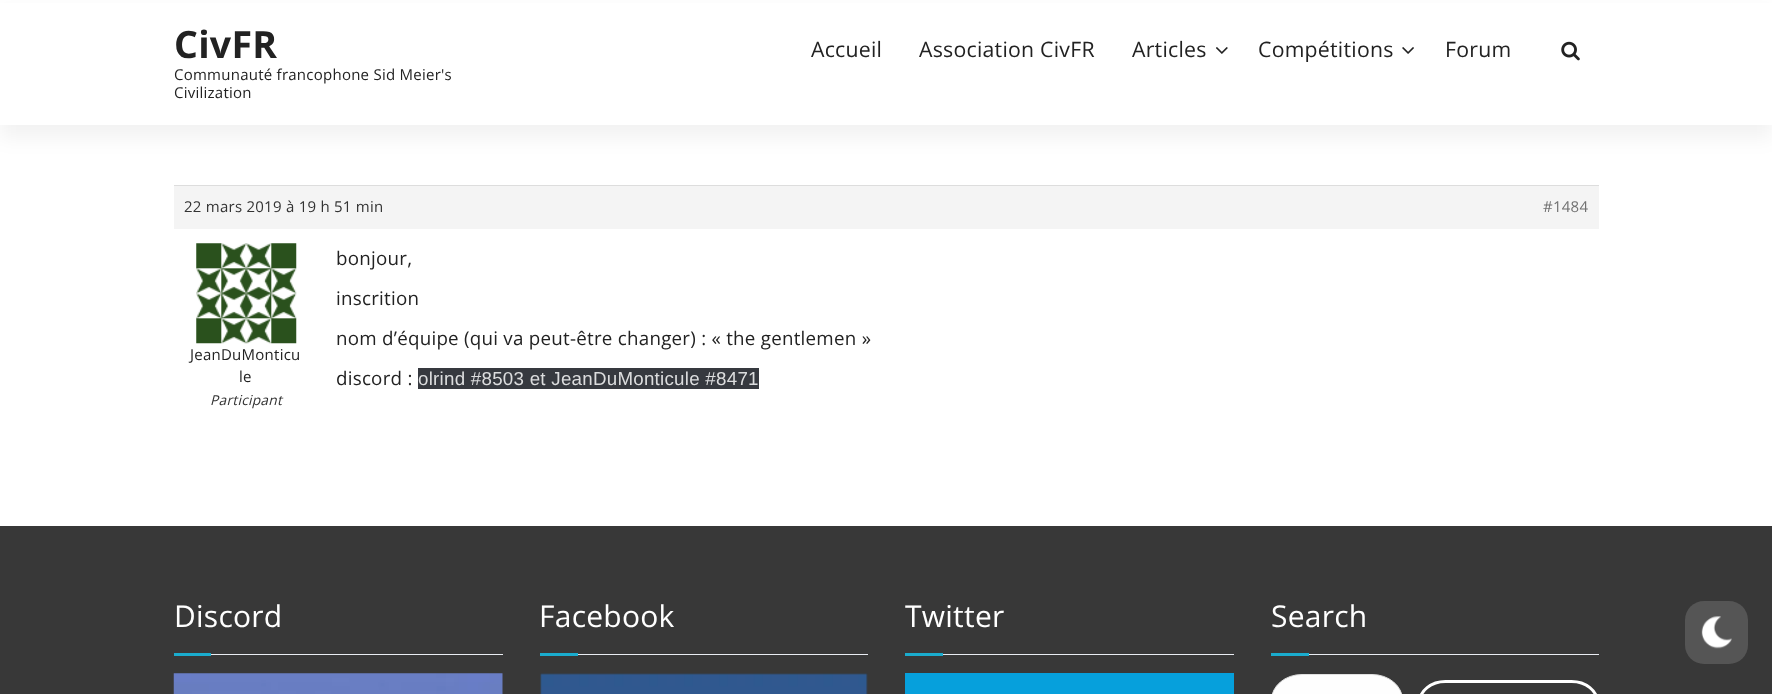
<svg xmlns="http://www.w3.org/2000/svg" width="1772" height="694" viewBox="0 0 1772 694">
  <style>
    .t1 { font: bold 37.5px Open Sans; letter-spacing: 0.25px; fill: #222; }
    .t2 { font: 15px Open Sans; letter-spacing: 0.25px; fill: #222; }
    .t3 { font: 21.25px Open Sans; letter-spacing: 0.25px; fill: #222; }
    .t4 { font: 15px Open Sans; letter-spacing: 0.25px; fill: #333; }
    .t5 { font: 15px Open Sans; letter-spacing: 0.25px; fill: #707070; }
    .t6 { font: italic 13.75px Open Sans; letter-spacing: 0.25px; fill: #333; }
    .t7 { font: 18.75px Open Sans; letter-spacing: 0.25px; fill: #222; }
    .t8 { font: 18.75px Liberation Sans; letter-spacing: 0.25px; fill: #dcddde; }
    .t9 { font: 30px Open Sans; letter-spacing: 0.25px; fill: #fff; }
  </style>
  <rect width="100%" height="100%" fill="#fff"/>
  <rect x="0" y="11" width="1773" height="127" fill="#0000000d" filter="blur(9.5px)"/>
  <rect x="0" y="3" width="1772" height="122" fill="#fff"/>
  <text x="174" y="58" class="t1">CivFR</text>
  <text x="174" y="80" class="t2">Communauté francophone Sid Meier's</text>
  <text x="174" y="98" class="t2">Civilization</text>
  <text x="811" y="57" class="t3">Accueil</text>
  <text x="919" y="57" class="t3">Association CivFR</text>
  <text x="1132" y="57" class="t3">Articles</text>
  <image x="1216" y="47" width="12" height="7" href="images/1.png"/>
  <text x="1258" y="57" class="t3">Compétitions</text>
  <image x="1402" y="47" width="12" height="7" href="images/2.png"/>
  <text x="1445" y="57" class="t3">Forum</text>
  <image x="1561" y="41" width="19" height="20" href="images/3.png"/>
  <rect x="174" y="186" width="1425" height="43" fill="#f4f4f4"/>
  <rect x="174" y="185" width="1425" height="1" fill="#ddd"/>
  <text x="184" y="212" class="t4">22 mars 2019 à 19 h 51 min</text>
  <text x="1543" y="212" class="t5">#1484</text>
  <image x="196" y="243" width="101" height="101" href="images/4.png"/>
  <text x="190" y="360" class="t2">JeanDuMonticu</text>
  <text x="239" y="382" class="t2">le</text>
  <text x="210" y="405" class="t6">Participant</text>
  <text x="336" y="265" class="t7">bonjour,</text>
  <text x="336" y="305" class="t7">inscrition</text>
  <text x="336" y="345" class="t7">nom d’équipe (qui va peut-être changer) : « the gentlemen »</text>
  <text x="336" y="385" class="t7">discord :</text>
  <rect x="418" y="368" width="341" height="21" fill="#36393f"/>
  <text x="418" y="385" class="t8">olrind #8503 et JeanDuMonticule #8471</text>
  <rect x="0" y="526" width="1772" height="168" fill="#383838"/>
  <rect x="211" y="654" width="292" height="1" fill="#e9ecf2"/>
  <text x="174" y="627" class="t9">Discord</text>
  <rect x="174" y="653" width="37" height="3" fill="#1aacce"/>
  <image x="173" y="673" width="330" height="21" href="images/5.png"/>
  <rect x="578" y="654" width="290" height="1" fill="#e9ecf2"/>
  <text x="539" y="627" class="t9">Facebook</text>
  <rect x="540" y="653" width="38" height="3" fill="#1aacce"/>
  <image x="540" y="673" width="328" height="21" href="images/6.png"/>
  <rect x="943" y="654" width="291" height="1" fill="#e9ecf2"/>
  <text x="905" y="627" class="t9">Twitter</text>
  <rect x="905" y="653" width="38" height="3" fill="#1aacce"/>
  <rect x="905" y="673" width="329" height="21" fill="#06a0dc"/>
  <rect x="1309" y="654" width="290" height="1" fill="#e9ecf2"/>
  <text x="1271" y="627" class="t9">Search</text>
  <rect x="1271" y="653" width="38" height="3" fill="#1aacce"/>
  <rect x="1271.5" y="674.5" width="131" height="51" rx="30.5" fill="#fefefe" stroke="#e0e0e0"/>
  <rect x="1419.5" y="681.5" width="178" height="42" rx="26" fill="none" stroke="#fff" stroke-width="3"/>
  <rect x="1685" y="601" width="63" height="63" rx="19" fill="#555"/>
  <image x="1701" y="616" width="31" height="33" href="images/7.png"/>
</svg>
